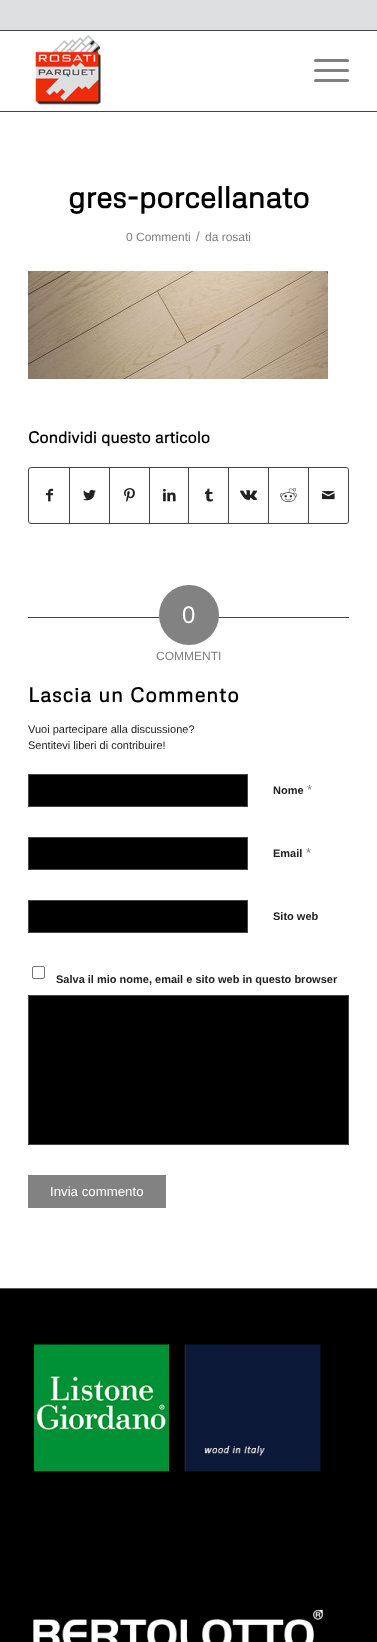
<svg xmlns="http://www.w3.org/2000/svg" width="377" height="1642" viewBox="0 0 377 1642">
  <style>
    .t1 { font: bold 30px Metrophobic; fill: #000; }
    .t2 { font: 12px Liberation Sans; fill: #808080; }
    .t3 { font: 13px Liberation Sans; fill: #808080; }
    .t4 { font: bold 16px Metrophobic; fill: #000; }
    .t5 { font: 24px Liberation Sans; fill: #fff; }
    .t6 { font: bold 20px Metrophobic; letter-spacing: 1px; fill: #000; }
    .t7 { font: 11px Liberation Sans; fill: #212121; }
    .t8 { font: bold 11px Liberation Sans; fill: #212121; }
    .t9 { font: 13.25px Liberation Sans; fill: #fff; }
  </style>
  <rect width="100%" height="100%" fill="#fff"/>
  <rect x="0" y="0" width="377" height="30" fill="#dddedf"/>
  <rect x="0" y="30" width="377" height="1" fill="#444"/>
  <rect x="0" y="111" width="377" height="1" fill="#444"/>
  <image x="35" y="34" width="66" height="72" href="images/1.png"/>
  <rect x="314" y="69" width="35" height="3" rx="1.5" fill="#808080"/>
  <rect x="314" y="59" width="35" height="3" rx="1.5" fill="#808080"/>
  <rect x="314" y="79" width="35" height="3" rx="1.5" fill="#808080"/>
  <text x="68" y="208" class="t1">gres-porcellanato</text>
  <text x="126" y="241" class="t2">0 Commenti</text>
  <text x="196" y="241" class="t3">/</text>
  <text x="205" y="241" class="t2">da rosati</text>
  <image x="28" y="271" width="300" height="108" href="images/2.png"/>
  <text x="28" y="443" class="t4">Condividi questo articolo</text>
  <rect x="28.5" y="467.5" width="320" height="56" rx="2.5" fill="none" stroke="#444"/>
  <image x="46" y="488" width="7" height="14" href="images/3.png"/>
  <rect x="69" y="468" width="1" height="55" fill="#444"/>
  <image x="83" y="489" width="13" height="12" href="images/4.png"/>
  <rect x="109" y="468" width="1" height="55" fill="#444"/>
  <image x="124" y="488" width="11" height="14" href="images/5.png"/>
  <rect x="149" y="468" width="1" height="55" fill="#444"/>
  <image x="163" y="488" width="13" height="14" href="images/6.png"/>
  <rect x="188" y="468" width="1" height="55" fill="#444"/>
  <image x="205" y="488" width="8" height="14" href="images/7.png"/>
  <rect x="228" y="468" width="1" height="55" fill="#444"/>
  <image x="240" y="490" width="17" height="10" href="images/8.png"/>
  <rect x="268" y="468" width="1" height="55" fill="#444"/>
  <image x="280" y="488" width="17" height="15" href="images/9.png"/>
  <rect x="308" y="468" width="1" height="55" fill="#444"/>
  <image x="322" y="491" width="13" height="9" href="images/10.png"/>
  <rect x="28" y="617" width="135" height="1" fill="#444"/>
  <rect x="214" y="617" width="135" height="1" fill="#444"/>
  <circle cx="189" cy="615" r="30" fill="#828282"/>
  <text x="182" y="623" class="t5">0</text>
  <text x="156" y="660" class="t2">COMMENTI</text>
  <text x="28" y="702" class="t6">Lascia un Commento</text>
  <text x="28" y="733" class="t7">Vuoi partecipare alla discussione?</text>
  <text x="28" y="749" class="t7">Sentitevi liberi di contribuire!</text>
  <rect x="28.5" y="774.5" width="219" height="32" fill="#000" stroke="#444"/>
  <text x="273" y="794" class="t8">Nome</text>
  <text x="307" y="794" class="t3">*</text>
  <rect x="28.5" y="837.5" width="219" height="32" fill="#000" stroke="#444"/>
  <text x="273" y="857" class="t8">Email</text>
  <text x="306" y="857" class="t3">*</text>
  <rect x="28.5" y="900.5" width="219" height="32" fill="#000" stroke="#444"/>
  <text x="273" y="920" class="t8">Sito web</text>
  <rect x="32.5" y="966.5" width="12" height="12" rx="1.5" fill="none" stroke="#767676"/>
  <text x="56" y="983" class="t8">Salva il mio nome, email e sito web in questo browser</text>
  <rect x="28.5" y="995.5" width="320" height="149" fill="#000" stroke="#444"/>
  <rect x="28" y="1175" width="138" height="33" fill="#828282"/>
  <text x="50" y="1196" class="t9">Invia commento</text>
  <rect x="0" y="1289" width="377" height="353" fill="#000"/>
  <rect x="0" y="1288" width="377" height="1" fill="#555"/>
  <image x="34" y="1344" width="287" height="128" href="images/11.png"/>
  <image x="33" y="1610" width="290" height="32" href="images/12.png"/>
</svg>
